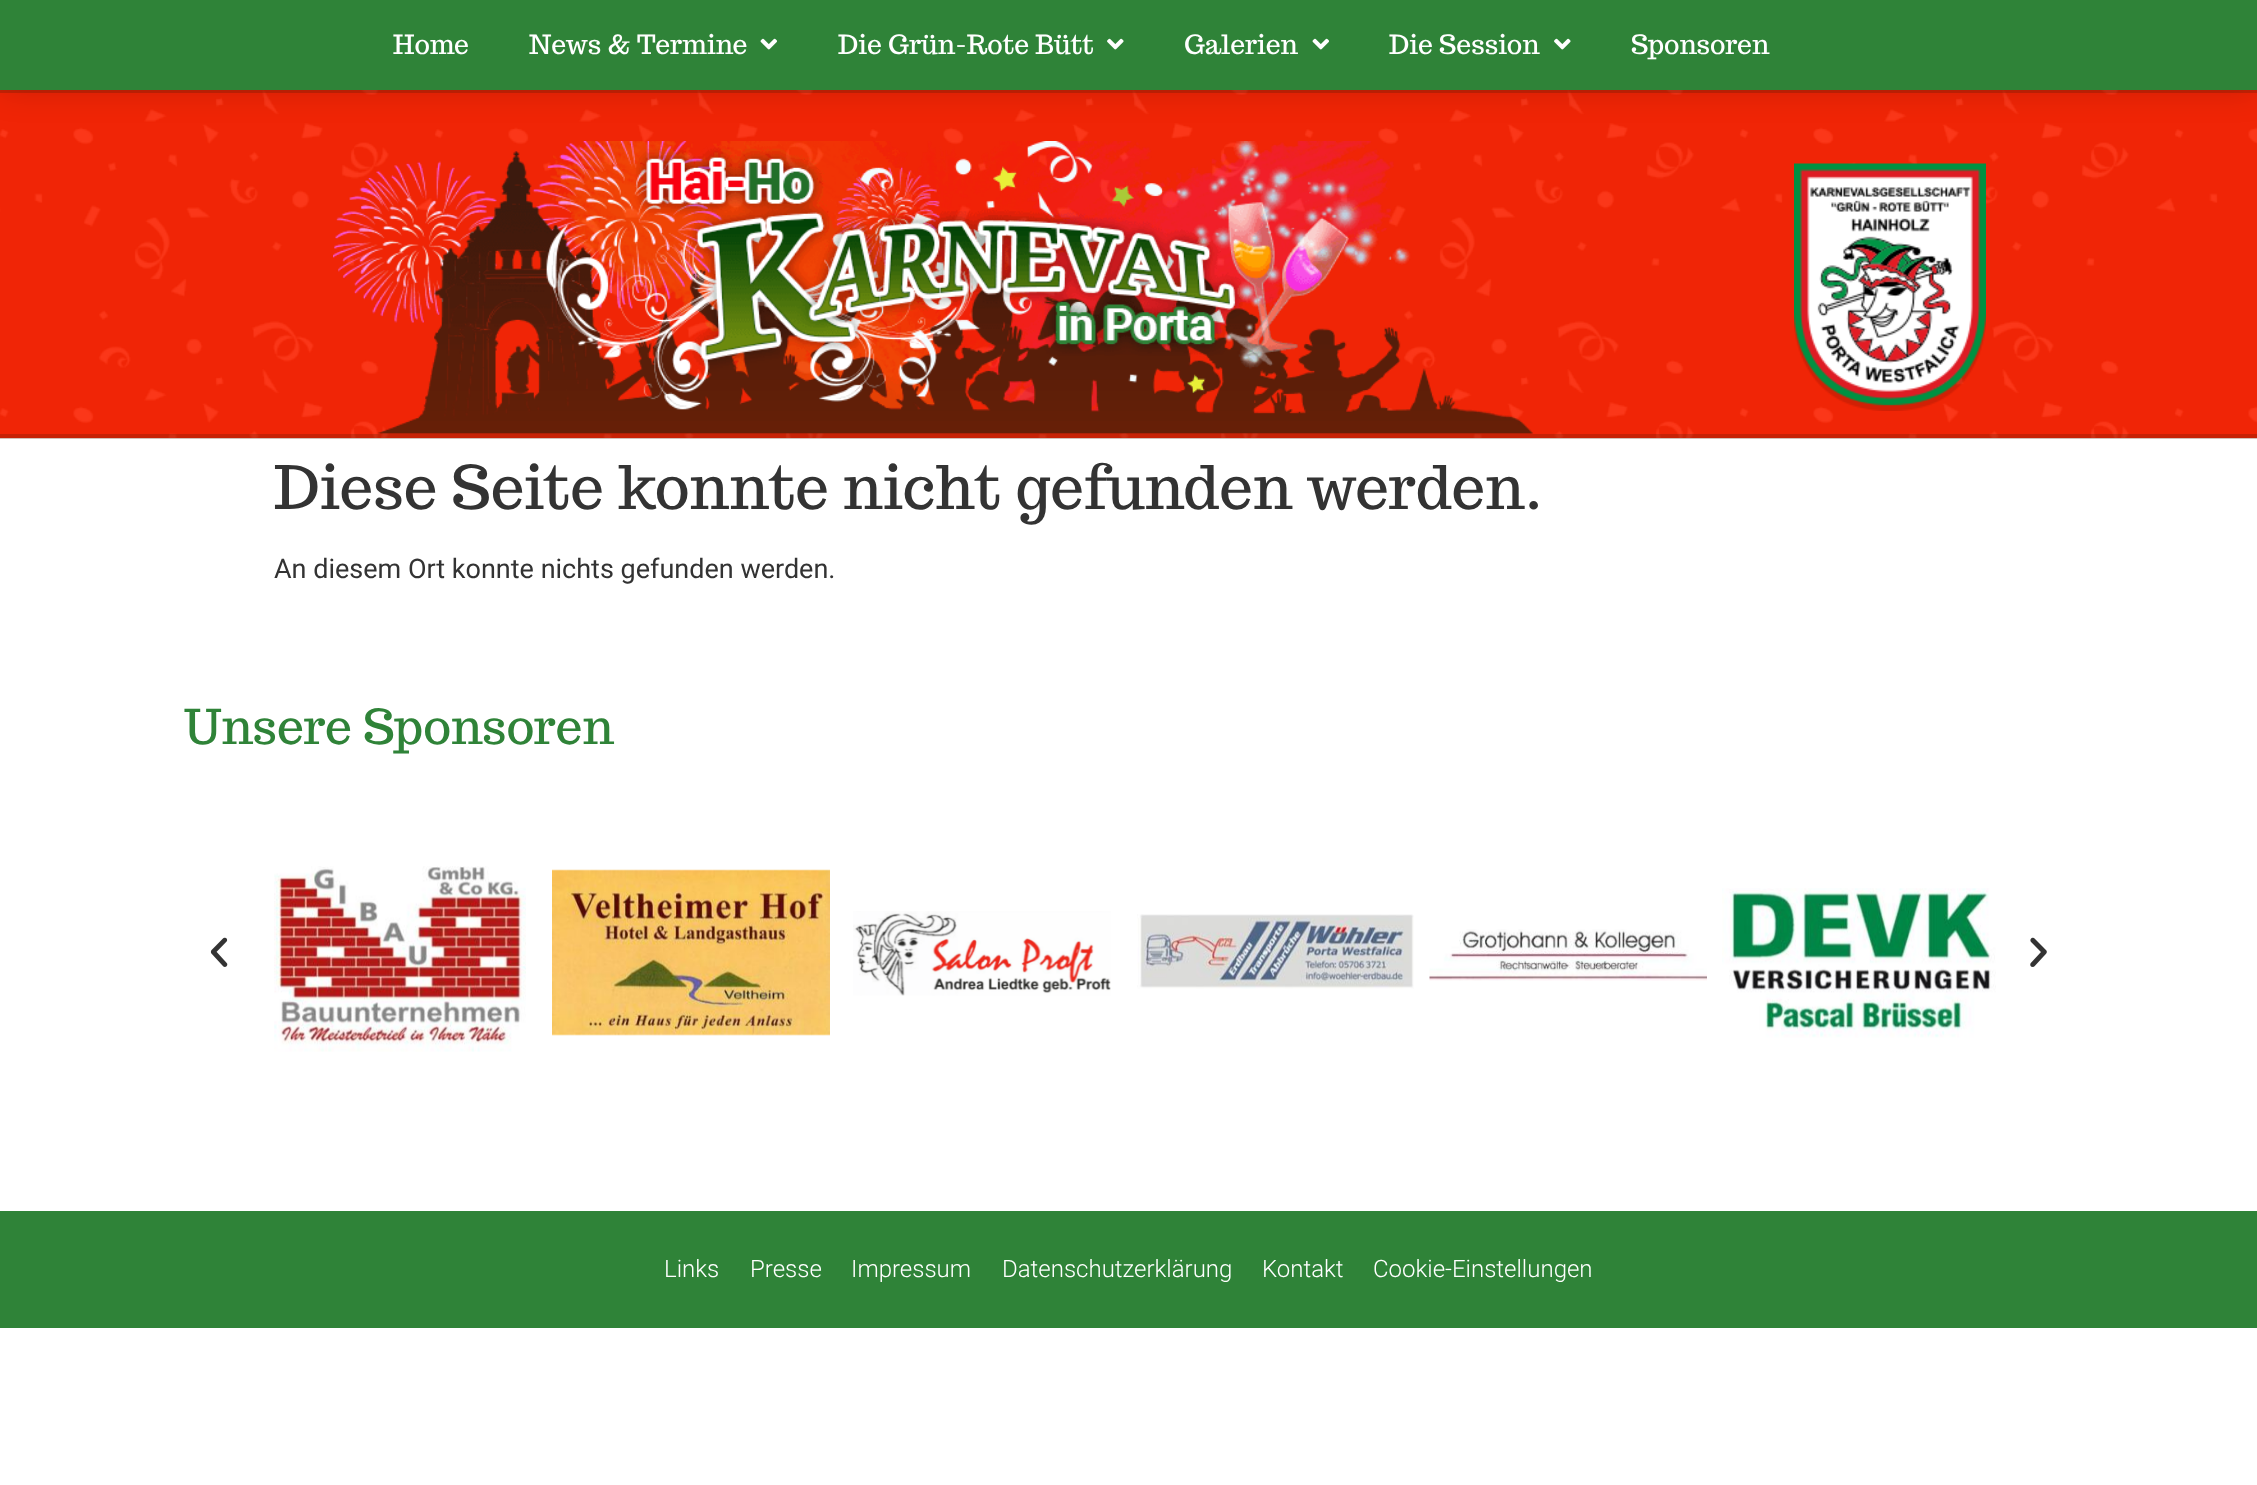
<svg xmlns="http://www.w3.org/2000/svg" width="2257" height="1485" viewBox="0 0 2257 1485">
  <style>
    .t1 { font: 26.5px Trocchi; fill: #fff; }
    .t2 { font: 60px Trocchi; fill: #333; }
    .t3 { font: 27px Roboto; fill: #333; }
    .t4 { font: 48px Trocchi; fill: #2f8338; }
    .t5 { font: 300 24px Roboto; fill: #fff; }
  </style>
  <rect width="100%" height="100%" fill="#fff"/>
  <rect x="0" y="90" width="2257" height="348" fill="#f02506"/>
  <image x="0" y="90" width="2257" height="348" href="images/3.png"/>
  <rect x="0" y="90" width="2257" height="3" fill="#5e1e0847"/>
  <rect x="0" y="0" width="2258" height="90" fill="#00000026" filter="blur(16.5px)"/>
  <rect x="0" y="0" width="2257" height="90" fill="#2f8338"/>
  <text x="393" y="54" class="t1">Home</text>
  <text x="529" y="54" class="t1">News &amp; Termine</text>
  <image x="760" y="38" width="17" height="12" href="images/1.png"/>
  <text x="838" y="54" class="t1">Die Grün-Rote Bütt</text>
  <image x="1107" y="38" width="17" height="12" href="images/2.png"/>
  <text x="1184" y="54" class="t1">Galerien</text>
  <image x="1312" y="38" width="17" height="12" href="images/1.png"/>
  <text x="1389" y="54" class="t1">Die Session</text>
  <image x="1554" y="38" width="17" height="12" href="images/2.png"/>
  <text x="1631" y="54" class="t1">Sponsoren</text>
  <rect x="0" y="434" width="2257" height="5" fill="#5e1e0847"/>
  <image x="333" y="141" width="1200" height="293" href="images/4.png"/>
  <image x="1794" y="163" width="192" height="248" href="images/5.png"/>
  <text x="274" y="509" class="t2">Diese Seite konnte nicht gefunden werden.</text>
  <text x="274" y="578" class="t3">An diesem Ort konnte nichts gefunden werden.</text>
  <text x="184" y="744" class="t4">Unsere Sponsoren</text>
  <image x="210" y="937" width="18" height="30" href="images/6.png"/>
  <image x="274" y="866" width="252" height="186" href="images/7.png"/>
  <image x="552" y="869" width="278" height="167" href="images/8.png"/>
  <image x="853" y="911" width="258" height="85" href="images/9.png"/>
  <image x="1137" y="914" width="277" height="75" href="images/10.png"/>
  <image x="1429" y="929" width="278" height="52" href="images/11.png"/>
  <image x="1722" y="888" width="274" height="150" href="images/12.png"/>
  <image x="2030" y="937" width="17" height="30" href="images/13.png"/>
  <rect x="0" y="1211" width="2257" height="117" fill="#2f8338"/>
  <text x="664" y="1277" class="t5">Links</text>
  <text x="750" y="1277" class="t5">Presse</text>
  <text x="851" y="1277" class="t5">Impressum</text>
  <text x="1002" y="1277" class="t5">Datenschutzerklärung</text>
  <text x="1262" y="1277" class="t5">Kontakt</text>
  <text x="1373" y="1277" class="t5">Cookie-Einstellungen</text>
</svg>
